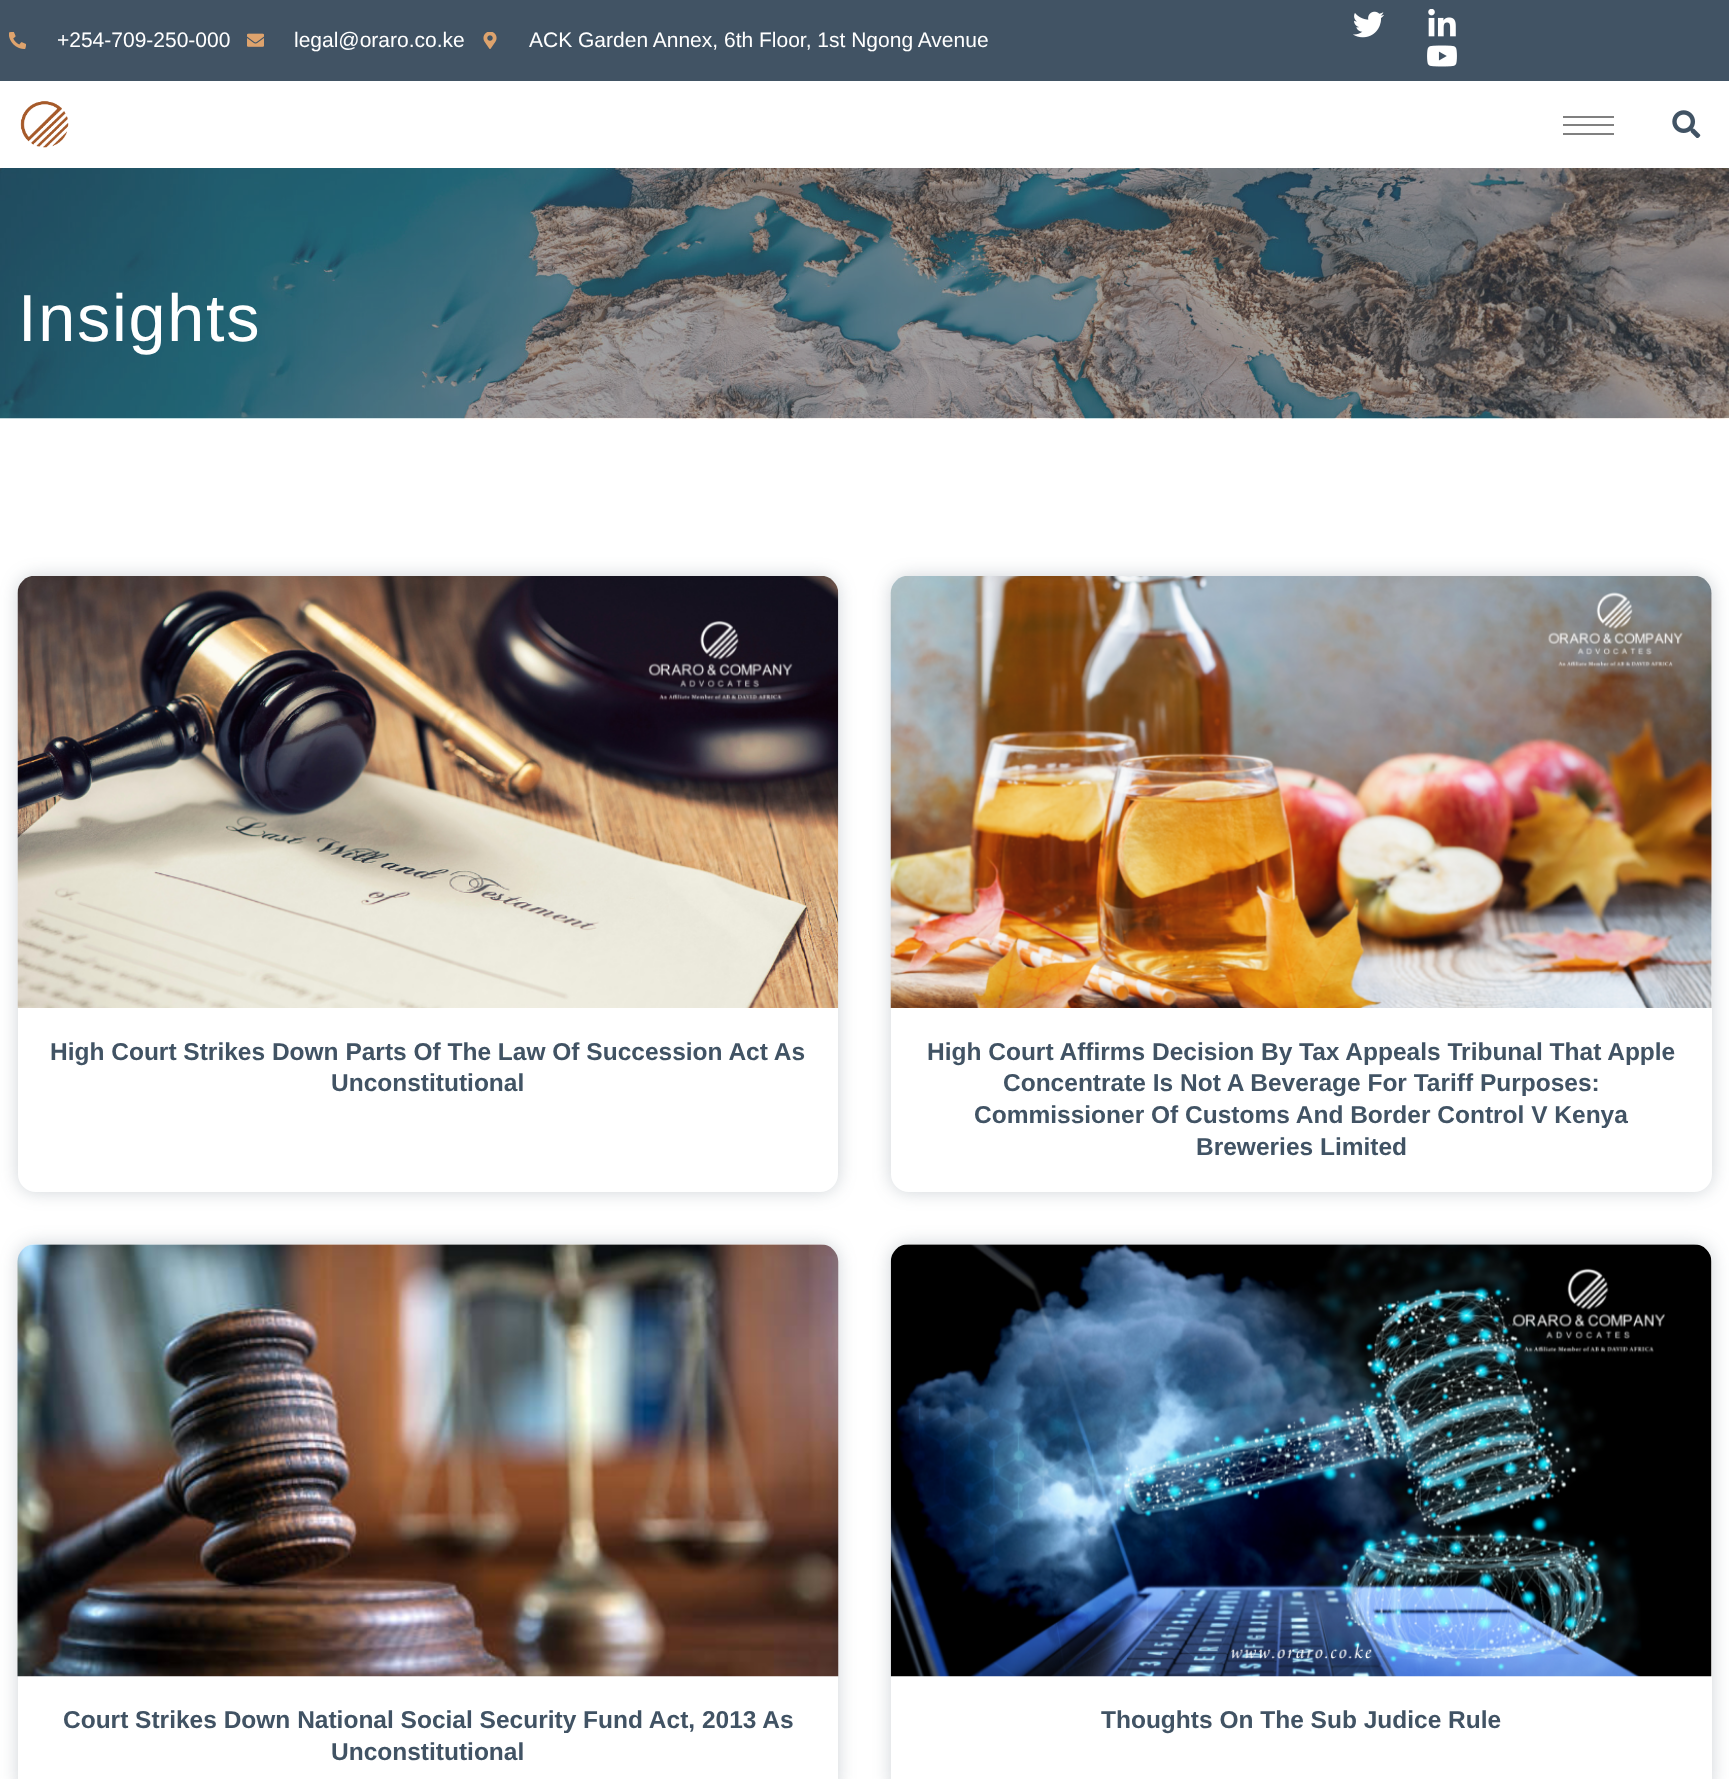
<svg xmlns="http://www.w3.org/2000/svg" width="1729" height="1779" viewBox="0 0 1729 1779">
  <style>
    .t1 { font: 21px Liberation Sans; fill: #fff; }
    .t2 { font: 66.5px Liberation Sans; letter-spacing: 1.75px; fill: #fff; }
    .t3 { font: bold 24.5px Liberation Sans; fill: #415364; }
  </style>
  <rect width="100%" height="100%" fill="#fff"/>
  <rect x="0" y="0" width="1729" height="81" fill="#415364"/>
  <image x="9" y="32" width="17" height="17" href="images/1.png"/>
  <text x="57" y="47" class="t1">+254-709-250-000</text>
  <image x="247" y="33" width="17" height="14" href="images/2.png"/>
  <text x="294" y="47" class="t1">legal@oraro.co.ke</text>
  <image x="483" y="32" width="14" height="17" href="images/3.png"/>
  <text x="529" y="47" class="t1">ACK Garden Annex, 6th Floor, 1st Ngong Avenue</text>
  <image x="1353" y="11" width="31" height="27" href="images/4.png"/>
  <image x="1428" y="9" width="28" height="28" href="images/5.png"/>
  <image x="1427" y="45" width="30" height="22" href="images/6.png"/>
  <image x="20" y="101" width="49" height="47" href="images/7.png"/>
  <rect x="1563" y="116" width="51" height="2" fill="#808080"/>
  <rect x="1563" y="124" width="51" height="2" fill="#808080"/>
  <rect x="1563" y="133" width="51" height="2" fill="#808080"/>
  <image x="1672" y="110" width="29" height="28" href="images/8.png"/>
  <image x="0" y="168" width="1729" height="251" href="images/9.png"/>
  <text x="18" y="341" class="t2">Insights</text>
  <rect x="18" y="576" width="820" height="616" rx="18" fill="#41536440" filter="blur(9px)"/>
  <rect x="18" y="576" width="820" height="616" rx="18" fill="#fff"/>
  <image x="17" y="576" width="822" height="432" href="images/10.png"/>
  <text x="50" y="1060" class="t3">High Court Strikes Down Parts Of The Law Of Succession Act As</text>
  <text x="331" y="1091" class="t3">Unconstitutional</text>
  <rect x="891" y="576" width="821" height="616" rx="18" fill="#41536440" filter="blur(9px)"/>
  <rect x="891" y="576" width="821" height="616" rx="18" fill="#fff"/>
  <image x="890" y="576" width="822" height="432" href="images/11.png"/>
  <text x="927" y="1060" class="t3">High Court Affirms Decision By Tax Appeals Tribunal That Apple</text>
  <text x="1003" y="1091" class="t3">Concentrate Is Not A Beverage For Tariff Purposes:</text>
  <text x="974" y="1123" class="t3">Commissioner Of Customs And Border Control V Kenya</text>
  <text x="1196" y="1155" class="t3">Breweries Limited</text>
  <rect x="18" y="1244" width="820" height="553" rx="18" fill="#41536440" filter="blur(9px)"/>
  <rect x="18" y="1244" width="820" height="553" rx="18" fill="#fff"/>
  <image x="17" y="1244" width="822" height="433" href="images/12.png"/>
  <text x="63" y="1728" class="t3">Court Strikes Down National Social Security Fund Act, 2013 As</text>
  <text x="331" y="1760" class="t3">Unconstitutional</text>
  <rect x="891" y="1244" width="821" height="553" rx="18" fill="#41536440" filter="blur(9px)"/>
  <rect x="891" y="1244" width="821" height="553" rx="18" fill="#fff"/>
  <image x="890" y="1244" width="822" height="433" href="images/13.png"/>
  <text x="1101" y="1728" class="t3">Thoughts On The Sub Judice Rule</text>
</svg>
